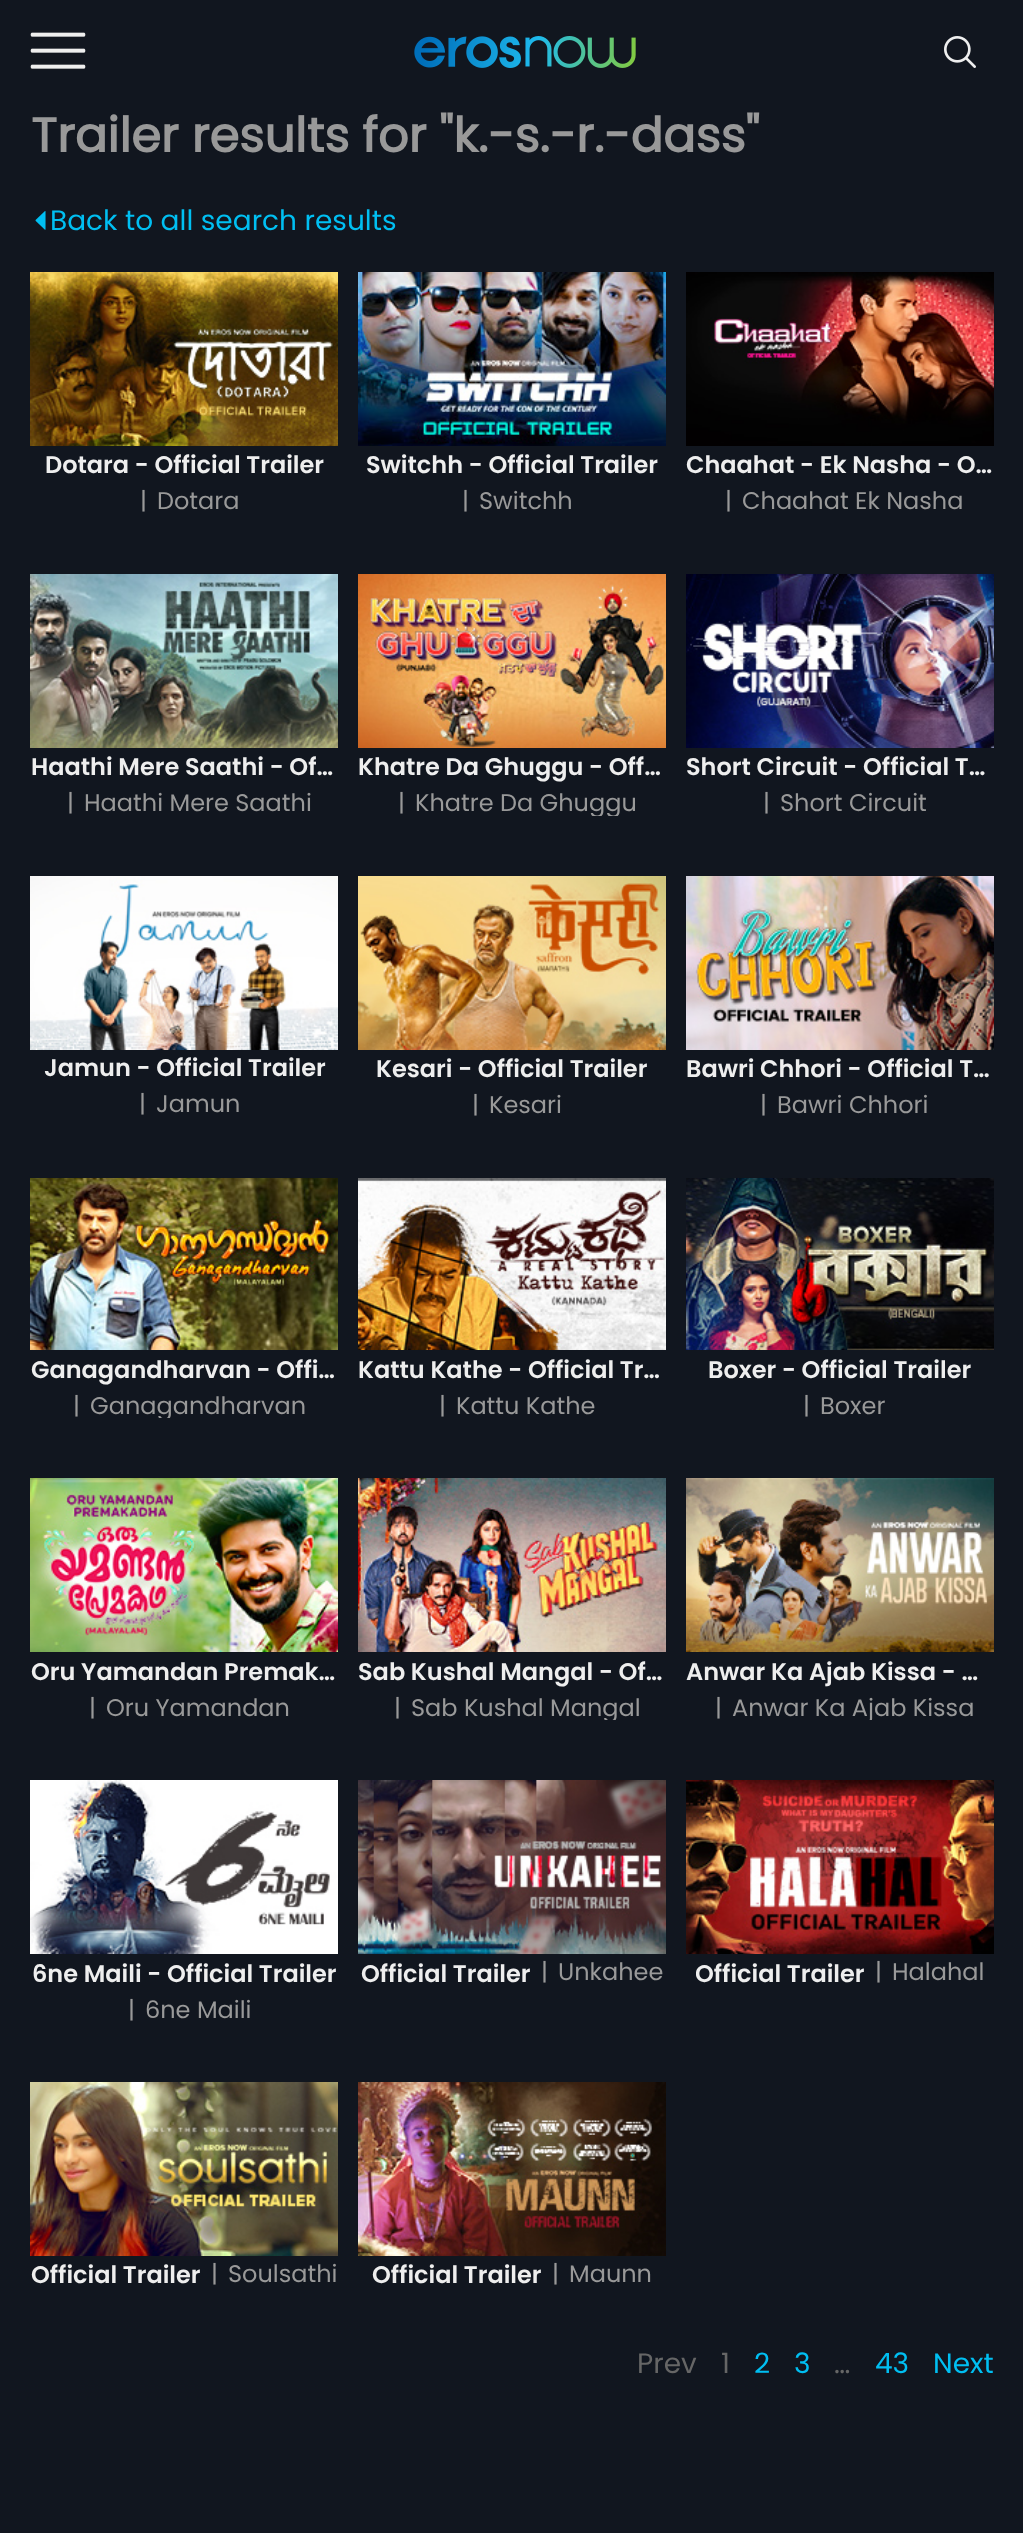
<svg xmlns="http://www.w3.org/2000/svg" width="1023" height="2533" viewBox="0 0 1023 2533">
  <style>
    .t1 { font: bold 48px Poppins; fill: #999; }
    .t2 { font: 28px Poppins; fill: #00bff2; }
    .t3 { font: 600 24px Poppins; fill: #eee; }
    .t4 { font: 24px Poppins; fill: #999; }
    .t5 { font: 28px Poppins; fill: #666; }
  </style>
  <defs>
    <clipPath id="clip1"><rect x="358" y="748" width="308" height="68"/></clipPath>
    <clipPath id="clip2"><rect x="30" y="1350" width="308" height="68"/></clipPath>
    <clipPath id="clip3"><rect x="358" y="1652" width="308" height="68"/></clipPath>
    <clipPath id="clip4"><rect x="686" y="1652" width="308" height="68"/></clipPath>
    <clipPath id="clip5"><rect x="32" y="1956" width="304" height="36"/></clipPath>
    <clipPath id="clip6"><rect x="696" y="1956" width="168" height="36"/></clipPath>
  </defs>
  <rect width="100%" height="100%" fill="#11161f"/>
  <image x="30" y="32" width="56" height="37" href="images/1.png"/>
  <image x="414" y="36" width="222" height="32" href="images/2.png"/>
  <image x="944" y="36" width="32" height="32" href="images/3.png"/>
  <text x="31" y="152" class="t1">Trailer results for "k.-s.-r.-dass"</text>
  <image x="35" y="211" width="11" height="19" href="images/4.png"/>
  <text x="50" y="230" class="t2">Back to all search results</text>
  <image x="30" y="272" width="308" height="174" href="images/5.png"/>
  <text x="45" y="473" class="t3">Dotara - Official Trailer</text>
  <text x="140" y="509" class="t4">|</text>
  <text x="157" y="509" class="t4">Dotara</text>
  <image x="358" y="272" width="308" height="174" href="images/6.png"/>
  <text x="366" y="473" class="t3">Switchh - Official Trailer</text>
  <text x="462" y="509" class="t4">|</text>
  <text x="479" y="509" class="t4">Switchh</text>
  <image x="686" y="272" width="308" height="174" href="images/7.png"/>
  <text x="686" y="473" class="t3">Chaahat - Ek Nasha - O…</text>
  <text x="725" y="509" class="t4">|</text>
  <text x="742" y="509" class="t4">Chaahat Ek Nasha</text>
  <image x="30" y="574" width="308" height="174" href="images/8.png"/>
  <text x="31" y="775" class="t3">Haathi Mere Saathi - Of…</text>
  <text x="67" y="811" class="t4">|</text>
  <text x="84" y="811" class="t4">Haathi Mere Saathi</text>
  <image x="358" y="574" width="308" height="174" href="images/9.png"/>
  <text x="358" y="775" class="t3">Khatre Da Ghuggu - Off…</text>
  <text x="398" y="811" class="t4">|</text>
  <g clip-path="url(#clip1)">
    <text x="415" y="811" class="t4">Khatre Da Ghuggu</text>
  </g>
  <image x="686" y="574" width="308" height="174" href="images/10.png"/>
  <text x="686" y="775" class="t3">Short Circuit - Official T…</text>
  <text x="763" y="811" class="t4">|</text>
  <text x="780" y="811" class="t4">Short Circuit</text>
  <image x="30" y="876" width="308" height="174" href="images/11.png"/>
  <text x="44" y="1076" class="t3">Jamun - Official Trailer</text>
  <text x="139" y="1112" class="t4">|</text>
  <text x="156" y="1112" class="t4">Jamun</text>
  <image x="358" y="876" width="308" height="174" href="images/12.png"/>
  <text x="376" y="1077" class="t3">Kesari - Official Trailer</text>
  <text x="472" y="1113" class="t4">|</text>
  <text x="489" y="1113" class="t4">Kesari</text>
  <image x="686" y="876" width="308" height="174" href="images/13.png"/>
  <text x="686" y="1077" class="t3">Bawri Chhori - Official T…</text>
  <text x="760" y="1113" class="t4">|</text>
  <text x="777" y="1113" class="t4">Bawri Chhori</text>
  <image x="30" y="1178" width="308" height="172" href="images/14.png"/>
  <text x="31" y="1378" class="t3">Ganagandharvan - Offi…</text>
  <text x="73" y="1414" class="t4">|</text>
  <g clip-path="url(#clip2)">
    <text x="90" y="1414" class="t4">Ganagandharvan</text>
  </g>
  <image x="358" y="1178" width="308" height="172" href="images/15.png"/>
  <text x="358" y="1378" class="t3">Kattu Kathe - Official Tr…</text>
  <text x="439" y="1414" class="t4">|</text>
  <text x="456" y="1414" class="t4">Kattu Kathe</text>
  <image x="686" y="1178" width="308" height="172" href="images/16.png"/>
  <text x="708" y="1378" class="t3">Boxer - Official Trailer</text>
  <text x="803" y="1414" class="t4">|</text>
  <text x="820" y="1414" class="t4">Boxer</text>
  <image x="30" y="1478" width="308" height="174" href="images/17.png"/>
  <text x="31" y="1680" class="t3">Oru Yamandan Premak…</text>
  <text x="89" y="1716" class="t4">|</text>
  <text x="106" y="1716" class="t4">Oru Yamandan</text>
  <image x="358" y="1478" width="308" height="174" href="images/18.png"/>
  <text x="358" y="1680" class="t3">Sab Kushal Mangal - Of…</text>
  <text x="394" y="1716" class="t4">|</text>
  <g clip-path="url(#clip3)">
    <text x="411" y="1716" class="t4">Sab Kushal Mangal</text>
  </g>
  <image x="686" y="1478" width="308" height="174" href="images/19.png"/>
  <text x="686" y="1680" class="t3">Anwar Ka Ajab Kissa - …</text>
  <text x="715" y="1716" class="t4">|</text>
  <g clip-path="url(#clip4)">
    <text x="732" y="1716" class="t4">Anwar Ka Ajab Kissa</text>
  </g>
  <image x="30" y="1780" width="308" height="174" href="images/20.png"/>
  <g clip-path="url(#clip5)">
    <text x="32" y="1982" class="t3">6ne Maili - Official Trailer</text>
  </g>
  <text x="128" y="2018" class="t4">|</text>
  <text x="145" y="2018" class="t4">6ne Maili</text>
  <image x="358" y="1780" width="308" height="174" href="images/21.png"/>
  <text x="361" y="1982" class="t3">Official Trailer</text>
  <text x="541" y="1980" class="t4">|</text>
  <text x="558" y="1980" class="t4">Unkahee</text>
  <image x="686" y="1780" width="308" height="174" href="images/22.png"/>
  <g clip-path="url(#clip6)">
    <text x="695" y="1982" class="t3">Official Trailer</text>
  </g>
  <text x="875" y="1980" class="t4">|</text>
  <text x="892" y="1980" class="t4">Halahal</text>
  <image x="30" y="2082" width="308" height="174" href="images/23.png"/>
  <text x="31" y="2283" class="t3">Official Trailer</text>
  <text x="211" y="2282" class="t4">|</text>
  <text x="228" y="2282" class="t4">Soulsathi</text>
  <image x="358" y="2082" width="308" height="174" href="images/24.png"/>
  <text x="372" y="2283" class="t3">Official Trailer</text>
  <text x="552" y="2282" class="t4">|</text>
  <text x="569" y="2282" class="t4">Maunn</text>
  <text x="637" y="2373" class="t5">Prev</text>
  <text x="721" y="2373" class="t5">1</text>
  <text x="754" y="2373" class="t2">2</text>
  <text x="794" y="2373" class="t2">3</text>
  <text x="834" y="2373" class="t5">…</text>
  <text x="875" y="2373" class="t2">43</text>
  <text x="933" y="2373" class="t2">Next</text>
</svg>
